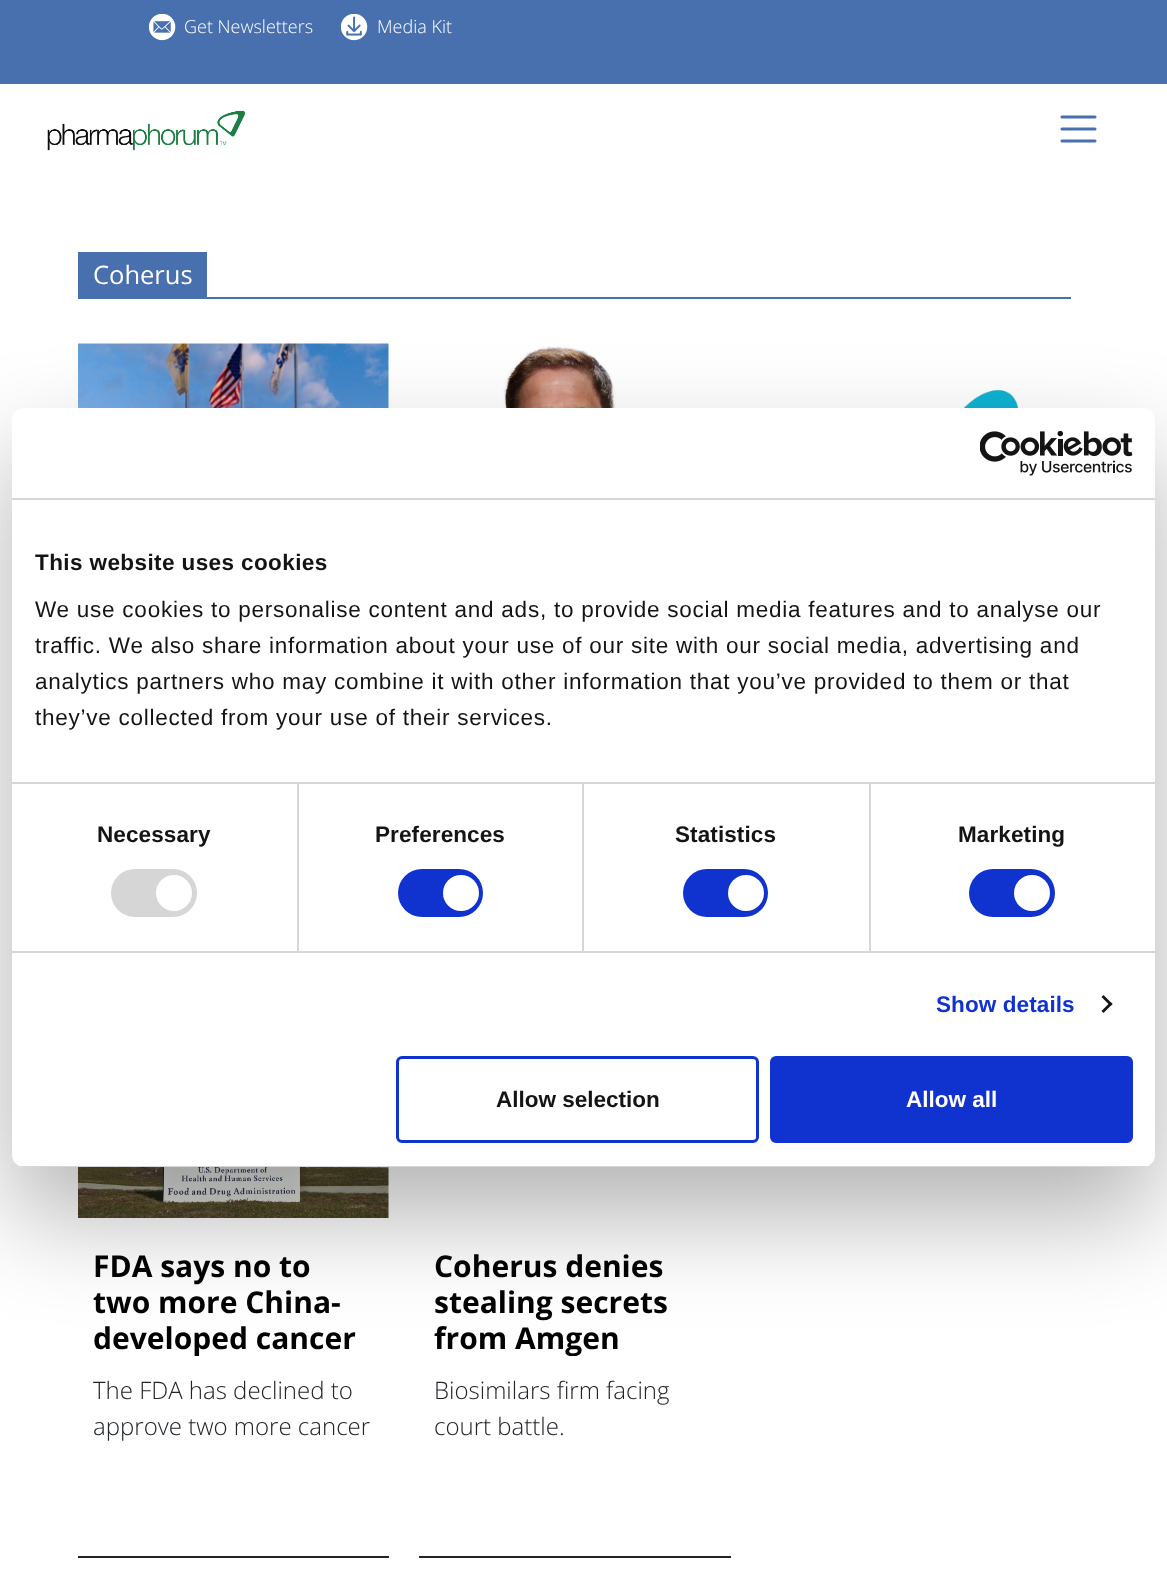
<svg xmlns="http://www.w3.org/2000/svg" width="1167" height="1575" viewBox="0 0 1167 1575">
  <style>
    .t1 { font: 300 18px Open Sans; fill: #fff; }
    .t2 { font: 25.5px Open Sans; fill: #fff; }
    .t3 { font: bold 30px Open Sans; fill: #000; }
    .t4 { font: 300 24px Open Sans; fill: #212529; }
    .t5 { font: bold 22.5px Liberation Sans; letter-spacing: 0.4px; fill: #141414; }
    .t6 { font: 22.5px Liberation Sans; letter-spacing: 0.75px; fill: #141414; }
    .t7 { font: bold 22.5px Liberation Sans; letter-spacing: 0.1px; fill: #141414; }
    .t8 { font: bold 22.5px Liberation Sans; letter-spacing: 0.1px; fill: #1032cf; }
    .t9 { font: bold 22.5px Liberation Sans; fill: #141414; }
    .t10 { font: bold 22.5px Liberation Sans; fill: #fff; }
  </style>
  <defs>
    <clipPath id="clip1"><rect x="93" y="1248" width="281" height="108"/></clipPath>
    <clipPath id="clip2"><rect x="434" y="1248" width="282" height="108"/></clipPath>
    <clipPath id="clip3"><rect x="12" y="408" width="1143" height="759" rx="12"/></clipPath>
  </defs>
  <rect width="100%" height="100%" fill="#fff"/>
  <rect x="0" y="0" width="1167" height="84" fill="#486fae"/>
  <image x="149" y="14" width="27" height="27" href="images/1.png"/>
  <text x="184" y="33" class="t1">Get Newsletters</text>
  <image x="341" y="14" width="27" height="27" href="images/2.png"/>
  <text x="377" y="33" class="t1">Media Kit</text>
  <image x="47" y="110" width="198" height="41" href="images/3.png"/>
  <path d="M1062 117H1095M1062 129H1095M1062 141H1095" fill="none" stroke="#486fae" stroke-width="3" stroke-linecap="round"/>
  <rect x="78" y="297" width="993" height="2" fill="#486fae"/>
  <rect x="78" y="252" width="129" height="45" fill="#486fae"/>
  <text x="93" y="284" class="t2">Coherus</text>
  <image x="78" y="343" width="311" height="65" href="images/4.png"/>
  <image x="426" y="346" width="305" height="62" href="images/5.png"/>
  <image x="783" y="389" width="268" height="19" href="images/6.png"/>
  <image x="78" y="1167" width="311" height="51" href="images/7.png"/>
  <rect x="78" y="1556" width="311" height="2" fill="#212529"/>
  <text x="93" y="1277" class="t3">FDA says no to</text>
  <text x="93" y="1313" class="t3">two more China-</text>
  <g clip-path="url(#clip1)">
    <text x="93" y="1349" class="t3">developed cancer</text>
  </g>
  <text x="93" y="1399" class="t4">The FDA has declined to</text>
  <text x="93" y="1435" class="t4">approve two more cancer</text>
  <rect x="419" y="1556" width="312" height="2" fill="#212529"/>
  <text x="434" y="1277" class="t3">Coherus denies</text>
  <text x="434" y="1313" class="t3">stealing secrets</text>
  <g clip-path="url(#clip2)">
    <text x="434" y="1349" class="t3">from Amgen</text>
  </g>
  <text x="434" y="1399" class="t4">Biosimilars firm facing</text>
  <text x="434" y="1435" class="t4">court battle.</text>
  <rect x="12" y="456" width="1143" height="759" rx="12" fill="#0000004d" filter="blur(51px)"/>
  <rect x="12" y="408" width="1143" height="759" rx="12" fill="#fff"/>
  <rect x="12" y="498" width="1143" height="2" fill="#d6d6d6"/>
  <image x="980" y="431" width="153" height="45" href="images/8.png"/>
  <rect x="297" y="783" width="2" height="168" fill="#d6d6d6"/>
  <rect x="582" y="783" width="2" height="168" fill="#d6d6d6"/>
  <rect x="869" y="783" width="2" height="168" fill="#d6d6d6"/>
  <rect x="12" y="782" width="1143" height="2" fill="#d6d6d6"/>
  <text x="35" y="570" class="t5">This website uses cookies</text>
  <text x="35" y="617" class="t6">We use cookies to personalise content and ads, to provide social media features and to analyse our</text>
  <text x="35" y="653" class="t6">traffic. We also share information about your use of our site with our social media, advertising and</text>
  <text x="35" y="689" class="t6">analytics partners who may combine it with other information that you’ve provided to them or that</text>
  <text x="35" y="725" class="t6">they’ve collected from your use of their services.</text>
  <rect x="12" y="951" width="1143" height="2" fill="#d6d6d6"/>
  <text x="97" y="842" class="t7">Necessary</text>
  <rect x="111" y="869" width="86" height="48" rx="24" fill="#d6d6d6"/>
  <circle cx="174" cy="893" r="18" fill="#fff"/>
  <text x="375" y="842" class="t7">Preferences</text>
  <rect x="398" y="869" width="85" height="48" rx="24" fill="#1032cf"/>
  <circle cx="461" cy="893" r="18" fill="#fff"/>
  <text x="675" y="842" class="t7">Statistics</text>
  <rect x="683" y="869" width="85" height="48" rx="24" fill="#1032cf"/>
  <circle cx="746" cy="893" r="18" fill="#fff"/>
  <text x="958" y="842" class="t7">Marketing</text>
  <rect x="969" y="869" width="86" height="48" rx="24" fill="#1032cf"/>
  <circle cx="1032" cy="893" r="18" fill="#fff"/>
  <text x="936" y="1012" class="t8">Show details</text>
  <path d="M1103.5 995L1112.5 1004L1110.5 1006L1101.5 997Z" fill="#141414"/>
  <path d="M1110.5 1002L1112.5 1004L1103.5 1013L1101.5 1011Z" fill="#141414"/>
  <g clip-path="url(#clip3)">
    <rect x="12" y="1166" width="1143" height="1" fill="#d6d6d6"/>
  </g>
  <rect x="397.5" y="1057.5" width="360" height="84" rx="4.5" fill="none" stroke="#1032cf" stroke-width="3"/>
  <text x="496" y="1107" class="t9">Allow selection</text>
  <rect x="771.5" y="1057.5" width="360" height="84" rx="4.5" fill="#1032cf" stroke="#1032cf" stroke-width="3"/>
  <text x="906" y="1107" class="t10">Allow all</text>
</svg>
